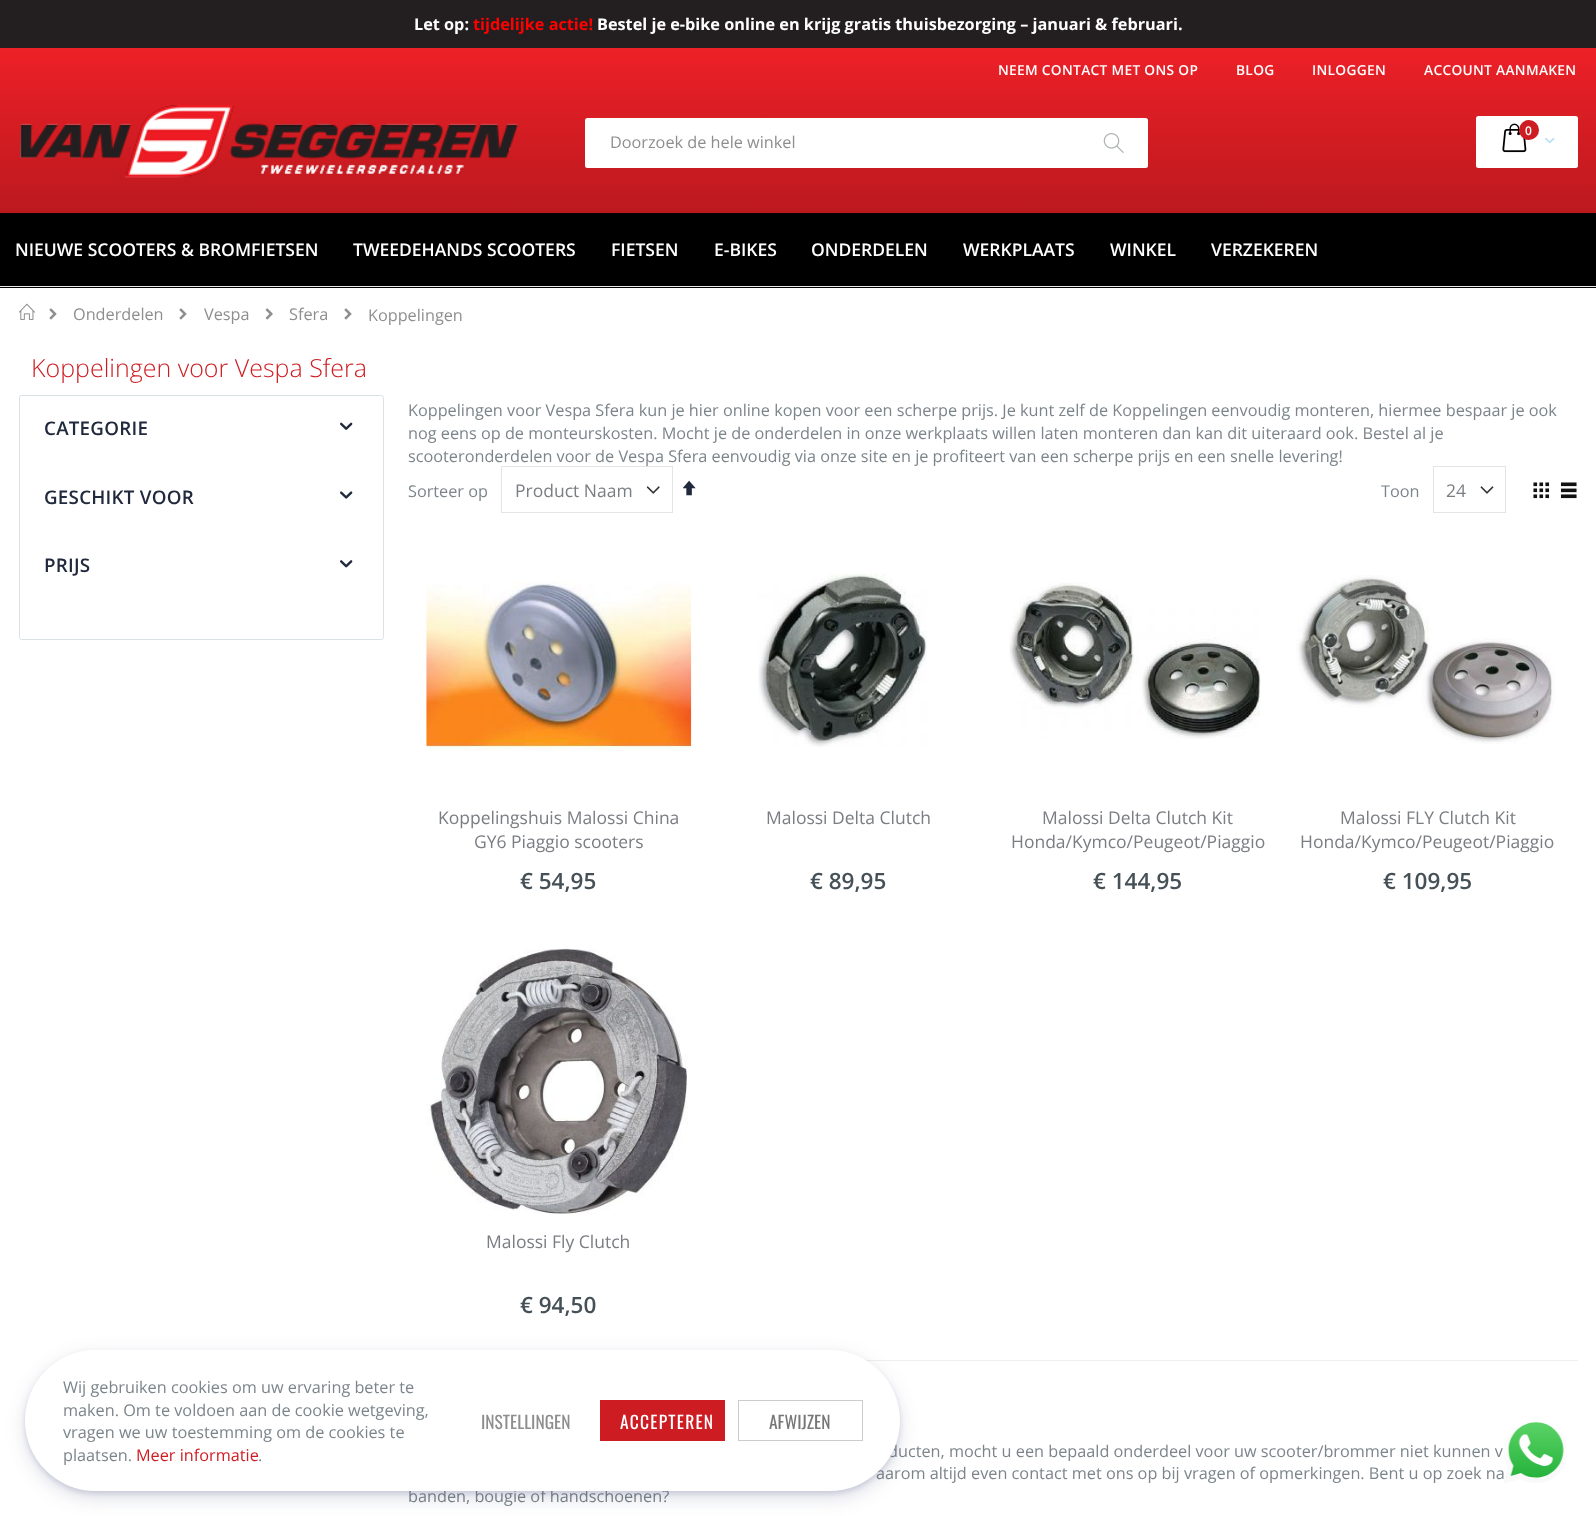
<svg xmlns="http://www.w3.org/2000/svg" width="1596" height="1516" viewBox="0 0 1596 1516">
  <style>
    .t1 { font: bold 16.25px Open Sans; fill: #fff; }
    .t2 { font: bold 16.25px Open Sans; fill: #f00; }
    .t3 { font: 600 13.75px Open Sans; letter-spacing: 0.3px; fill: #fff; }
    .t4 { font: 600 12px Open Sans; fill: #fff; }
    .t5 { font: 16.25px Open Sans; fill: #8e8e8e; }
    .t6 { font: 600 17.5px Open Sans; fill: #fff; }
    .t7 { font: 300 25px Open Sans; fill: #cd1d23; }
    .t8 { font: 600 18.75px Open Sans; letter-spacing: 0.25px; fill: #21293c; }
    .t9 { font: 16.25px Open Sans; fill: #7b858a; }
    .t10 { font: 17.5px Open Sans; fill: #7a7d82; }
    .t11 { font: 600 22.5px Open Sans; fill: #465157; }
    .t12 { font: 16.25px Open Sans; fill: #cd1d23; }
    .t13 { font: 17.5px Oswald; fill: #8e8e8e; }
    .t14 { font: 17.5px Oswald; letter-spacing: 1.25px; fill: #fff; }
    .t15 { font: 17.5px Oswald; fill: #777; }
  </style>
  <defs>
    <linearGradient id="g1" gradientUnits="userSpaceOnUse" x1="798" y1="47" x2="798" y2="288"><stop offset="0" stop-color="#ed2027"/><stop offset="1" stop-color="#a5161b"/></linearGradient>
  </defs>
  <rect width="100%" height="100%" fill="#fff"/>
  <rect x="0" y="0" width="1596" height="48" fill="#231f20"/>
  <text x="414" y="30" class="t1">Let op:</text>
  <text x="473" y="30" class="t2">tijdelijke actie!</text>
  <text x="597" y="30" class="t1">Bestel je e-bike online en krijg gratis thuisbezorging – januari &amp; februari.</text>
  <rect x="0" y="48" width="1596" height="165" fill="url(#g1)"/>
  <text x="998" y="75" class="t3">NEEM CONTACT MET ONS OP</text>
  <text x="1236" y="75" class="t3">BLOG</text>
  <text x="1312" y="75" class="t3">INLOGGEN</text>
  <text x="1424" y="75" class="t3">ACCOUNT AANMAKEN</text>
  <image x="19" y="105" width="499" height="73" href="images/1.png"/>
  <rect x="1476" y="116" width="102" height="52" rx="2.5" fill="#fff"/>
  <image x="1502" y="123" width="25" height="30" href="images/2.png"/>
  <circle cx="1529" cy="130" r="10" fill="#cd1d23"/>
  <text x="1525" y="135" class="t4">0</text>
  <image x="1545" y="137" width="10" height="7" href="images/3.png"/>
  <rect x="585" y="118" width="563" height="50" rx="2.5" fill="#fff"/>
  <text x="610" y="148" class="t5">Doorzoek de hele winkel</text>
  <image x="1103" y="133" width="21" height="20" href="images/4.png"/>
  <rect x="0" y="213" width="1596" height="75" fill="#000"/>
  <rect x="0" y="286" width="1596" height="1" fill="#ececec"/>
  <text x="15" y="256" class="t6">NIEUWE SCOOTERS &amp; BROMFIETSEN</text>
  <text x="353" y="256" class="t6">TWEEDEHANDS SCOOTERS</text>
  <text x="611" y="256" class="t6">FIETSEN</text>
  <text x="714" y="256" class="t6">E-BIKES</text>
  <text x="811" y="256" class="t6">ONDERDELEN</text>
  <text x="963" y="256" class="t6">WERKPLAATS</text>
  <text x="1110" y="256" class="t6">WINKEL</text>
  <text x="1211" y="256" class="t6">VERZEKEREN</text>
  <image x="19" y="303" width="16" height="17" href="images/5.png"/>
  <image x="49" y="308" width="8" height="12" href="images/6.png"/>
  <text x="73" y="320" class="t5">Onderdelen</text>
  <image x="179" y="308" width="8" height="12" href="images/6.png"/>
  <text x="204" y="320" class="t5">Vespa</text>
  <image x="265" y="308" width="8" height="12" href="images/7.png"/>
  <text x="289" y="320" class="t5">Sfera</text>
  <image x="344" y="308" width="8" height="12" href="images/6.png"/>
  <text x="368" y="321" class="t5">Koppelingen</text>
  <text x="31" y="377" class="t7">Koppelingen voor Vespa Sfera</text>
  <rect x="19.5" y="395.5" width="364" height="244" rx="2" fill="none" stroke="#dae2e6"/>
  <text x="44" y="435" class="t8">CATEGORIE</text>
  <image x="340" y="422" width="13" height="8" href="images/8.png"/>
  <text x="44" y="504" class="t8">GESCHIKT VOOR</text>
  <image x="340" y="491" width="13" height="8" href="images/9.png"/>
  <text x="44" y="572" class="t8">PRIJS</text>
  <image x="340" y="560" width="13" height="8" href="images/10.png"/>
  <text x="408" y="416" class="t9">Koppelingen voor Vespa Sfera kun je hier online kopen voor een scherpe prijs. Je kunt zelf de Koppelingen eenvoudig monteren, hiermee bespaar je ook</text>
  <text x="408" y="439" class="t9">nog eens op de monteurskosten. Mocht je de onderdelen in onze werkplaats willen laten monteren dan kan dit uiteraard ook. Bestel al je</text>
  <text x="408" y="462" class="t9">scooteronderdelen voor de Vespa Sfera eenvoudig via onze site en je profiteert van een scherpe prijs en een snelle levering!</text>
  <text x="408" y="497" class="t9">Sorteer op</text>
  <image x="646" y="486" width="14" height="8" href="images/11.png"/>
  <rect x="501.5" y="466.5" width="171" height="46" fill="none" stroke="#e4e4e4"/>
  <text x="515" y="497" class="t10">Product Naam</text>
  <image x="683" y="480" width="13" height="16" href="images/12.png"/>
  <text x="1381" y="497" class="t9">Toon</text>
  <image x="1480" y="486" width="14" height="8" href="images/13.png"/>
  <rect x="1433.5" y="466.5" width="72" height="46" fill="none" stroke="#e4e4e4"/>
  <text x="1446" y="497" class="t10">24</text>
  <image x="1533" y="482" width="17" height="17" href="images/14.png"/>
  <image x="1560" y="482" width="17" height="17" href="images/15.png"/>
  <image x="426" y="581" width="266" height="170" href="images/16.png"/>
  <text x="438" y="824" class="t10">Koppelingshuis Malossi China</text>
  <text x="474" y="848" class="t10">GY6 Piaggio scooters</text>
  <text x="520" y="889" class="t11">€ 54,95</text>
  <image x="758" y="573" width="169" height="174" href="images/17.png"/>
  <text x="766" y="824" class="t10">Malossi Delta Clutch</text>
  <text x="810" y="889" class="t11">€ 89,95</text>
  <image x="1009" y="582" width="252" height="157" href="images/18.png"/>
  <text x="1042" y="824" class="t10">Malossi Delta Clutch Kit</text>
  <text x="1011" y="848" class="t10">Honda/Kymco/Peugeot/Piaggio</text>
  <text x="1093" y="889" class="t11">€ 144,95</text>
  <image x="1296" y="575" width="259" height="169" href="images/19.png"/>
  <text x="1340" y="824" class="t10">Malossi FLY Clutch Kit</text>
  <text x="1300" y="848" class="t10">Honda/Kymco/Peugeot/Piaggio</text>
  <text x="1383" y="889" class="t11">€ 109,95</text>
  <image x="426" y="948" width="262" height="266" href="images/20.png"/>
  <text x="486" y="1248" class="t10">Malossi Fly Clutch</text>
  <text x="520" y="1313" class="t11">€ 94,50</text>
  <rect x="865" y="1360" width="713" height="1" fill="#efefef"/>
  <text x="888" y="1457" class="t9">ducten, mocht u een bepaald onderdeel voor uw scooter/brommer niet kunnen v</text>
  <text x="876" y="1479" class="t9">aarom altijd even contact met ons op bij vragen of opmerkingen. Bent u op zoek na</text>
  <text x="408" y="1502" class="t9">banden, bougie of handschoenen?</text>
  <rect x="25" y="1353" width="875" height="141" rx="70.5" fill="#5d649433" filter="blur(2.5px)"/>
  <rect x="25" y="1356" width="875" height="142" rx="71" fill="#252c6126" filter="blur(9.5px)"/>
  <rect x="25" y="1350" width="875" height="141" rx="70.5" fill="#fff"/>
  <text x="63" y="1393" class="t9">Wij gebruiken cookies om uw ervaring beter te</text>
  <text x="63" y="1416" class="t9">maken. Om te voldoen aan de cookie wetgeving,</text>
  <text x="63" y="1438" class="t9">vragen we uw toestemming om de cookies te</text>
  <text x="63" y="1461" class="t9">plaatsen.</text>
  <text x="136" y="1461" class="t12">Meer informatie</text>
  <text x="258" y="1461" class="t9">.</text>
  <text x="481" y="1429" class="t13">INSTELLINGEN</text>
  <rect x="600" y="1400" width="125" height="41" fill="#cd1d23"/>
  <text x="620" y="1429" class="t14">ACCEPTEREN</text>
  <rect x="738.5" y="1400.5" width="124" height="40" fill="none" stroke="#ccc"/>
  <text x="769" y="1429" class="t15">AFWIJZEN</text>
  <image x="1502" y="1422" width="65" height="61" href="images/21.png"/>
</svg>
